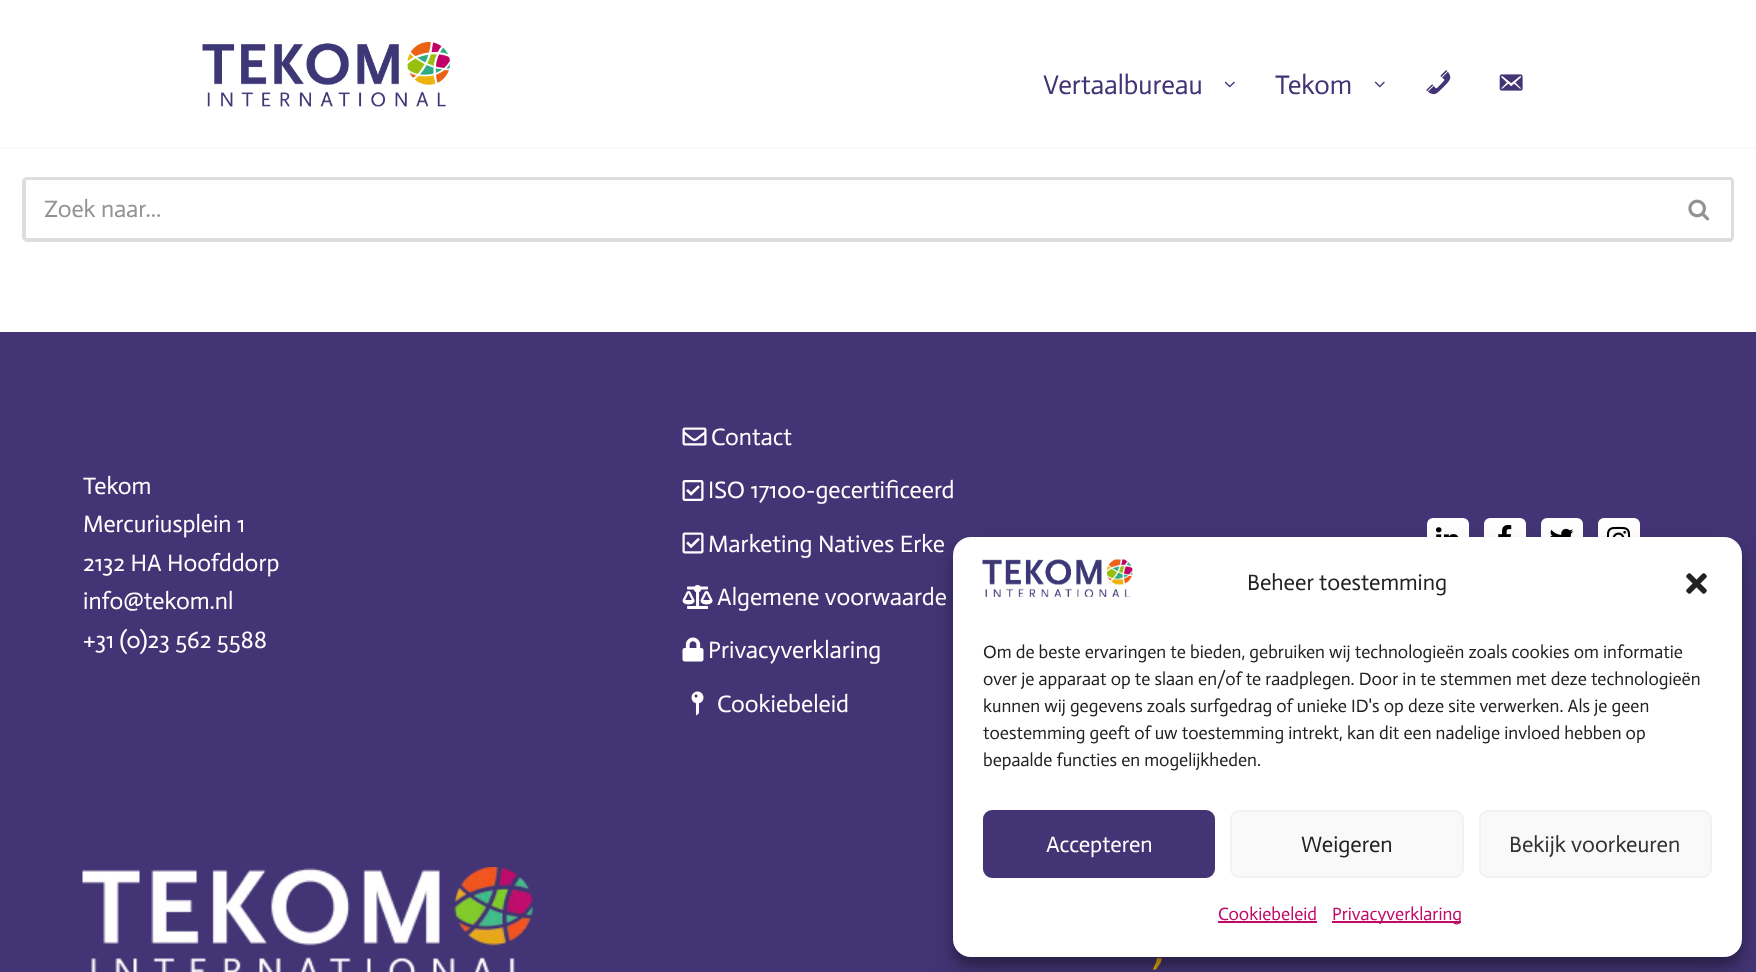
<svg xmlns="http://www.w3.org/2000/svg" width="1756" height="972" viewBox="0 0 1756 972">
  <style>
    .t1 { font: 27px Actor; fill: #433575; }
    .t2 { font: 24px Actor; fill: #939393; }
    .t3 { font: 24px Actor; fill: #fff; }
    .t4 { font: italic 39px DejaVu Sans Mono; fill: #edb007; }
    .t5 { font: 22.5px Actor; fill: #222; }
    .t6 { font: 18px Actor; fill: #222; }
    .t7 { font: 22.5px Actor; fill: #fff; }
    .t8 { font: 22.5px Actor; fill: #333; }
    .t9 { font: 18px Actor; fill: #c10a67; }
  </style>
  <rect width="100%" height="100%" fill="#fff"/>
  <rect x="0" y="-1" width="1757" height="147" fill="#0000001a" filter="blur(2px)"/>
  <rect x="0" y="0" width="1756" height="147" fill="#fff"/>
  <image x="202" y="42" width="248" height="65" href="images/1.png"/>
  <text x="1043" y="94" class="t1">Vertaalbureau</text>
  <image x="1224" y="81" width="11" height="7" href="images/2.png"/>
  <text x="1275" y="94" class="t1">Tekom</text>
  <image x="1374" y="81" width="11" height="7" href="images/2.png"/>
  <image x="1426" y="70" width="25" height="25" href="images/3.png"/>
  <image x="1499" y="74" width="24" height="17" href="images/4.png"/>
  <path d="M27 177H1666V242H27C25 242 22 239 22 237V182C22 179 25 177 27 177ZM27 180H1666V238H27C26 238 26 238 26 237V182C26 181 26 180 27 180Z" fill="#ddd" fill-rule="evenodd"/>
  <text x="44" y="217" class="t2">Zoek naar...</text>
  <path d="M1666 177H1730C1732 177 1734 179 1734 182V237C1734 239 1732 242 1730 242H1666ZM1666 180H1730C1730 180 1731 181 1731 182V237C1731 238 1730 238 1730 238H1666Z" fill="#ddd" fill-rule="evenodd"/>
  <image x="1688" y="199" width="22" height="22" href="images/5.png"/>
  <rect x="0" y="332" width="1756" height="640" fill="#433575"/>
  <text x="83" y="494" class="t3">Tekom</text>
  <text x="83" y="532" class="t3">Mercuriusplein 1</text>
  <text x="83" y="571" class="t3">2132 HA Hoofddorp</text>
  <text x="83" y="609" class="t3">info@tekom.nl</text>
  <text x="83" y="648" class="t3">+31 (0)23 562 5588</text>
  <image x="682" y="427" width="25" height="19" href="images/6.png"/>
  <text x="711" y="445" class="t3">Contact</text>
  <image x="682" y="480" width="22" height="21" href="images/7.png"/>
  <text x="708" y="498" class="t3">ISO 17100-gecertificeerd</text>
  <image x="682" y="532" width="22" height="22" href="images/8.png"/>
  <text x="708" y="552" class="t3">Marketing Natives Erke</text>
  <image x="682" y="585" width="31" height="24" href="images/9.png"/>
  <text x="717" y="605" class="t3">Algemene voorwaarde</text>
  <image x="682" y="637" width="22" height="25" href="images/10.png"/>
  <text x="708" y="658" class="t3">Privacyverklaring</text>
  <image x="691" y="691" width="13" height="25" href="images/11.png"/>
  <text x="717" y="712" class="t3">Cookiebeleid</text>
  <rect x="1427" y="518" width="42" height="42" rx="6" fill="#fff"/>
  <image x="1435" y="527" width="24" height="10" href="images/12.png"/>
  <rect x="1484" y="518" width="42" height="42" rx="6" fill="#fff"/>
  <image x="1498" y="525" width="14" height="12" href="images/13.png"/>
  <rect x="1541" y="518" width="42" height="42" rx="6" fill="#fff"/>
  <image x="1550" y="528" width="24" height="9" href="images/14.png"/>
  <rect x="1598" y="518" width="42" height="42" rx="6" fill="#fff"/>
  <image x="1606" y="526" width="25" height="11" href="images/15.png"/>
  <image x="82" y="867" width="451" height="105" href="images/16.png"/>
  <text x="1149" y="964" class="t4">,</text>
  <rect x="953" y="546" width="789" height="420" rx="18" fill="#0000003b" filter="blur(4.5px)"/>
  <rect x="953" y="552" width="789" height="420" rx="18" fill="#00000030" filter="blur(15px)"/>
  <rect x="953" y="537" width="789" height="420" rx="18" fill="#fff"/>
  <image x="982" y="559" width="151" height="38" href="images/17.png"/>
  <text x="1247" y="590" class="t5">Beheer toestemming</text>
  <image x="1686" y="573" width="21" height="21" href="images/18.png"/>
  <text x="983" y="658" class="t6">Om de beste ervaringen te bieden, gebruiken wij technologieën zoals cookies om informatie</text>
  <text x="983" y="685" class="t6">over je apparaat op te slaan en/of te raadplegen. Door in te stemmen met deze technologieën</text>
  <text x="983" y="712" class="t6">kunnen wij gegevens zoals surfgedrag of unieke ID's op deze site verwerken. Als je geen</text>
  <text x="983" y="739" class="t6">toestemming geeft of uw toestemming intrekt, kan dit een nadelige invloed hebben op</text>
  <text x="983" y="766" class="t6">bepaalde functies en mogelijkheden.</text>
  <rect x="984" y="811" width="230" height="66" rx="8" fill="#433575" stroke="#433575" stroke-width="2"/>
  <text x="1046" y="852" class="t7">Accepteren</text>
  <rect x="1231" y="811" width="232" height="66" rx="8" fill="#f9f9f9" stroke="#f2f2f2" stroke-width="2"/>
  <text x="1301" y="852" class="t5">Weigeren</text>
  <rect x="1480" y="811" width="231" height="66" rx="8" fill="#f9f9f9" stroke="#f2f2f2" stroke-width="2"/>
  <text x="1509" y="852" class="t8">Bekijk voorkeuren</text>
  <text x="1218" y="920" class="t9">Cookiebeleid</text>
  <rect x="1218" y="921" width="99" height="2" fill="#c10a67"/>
  <rect x="1332" y="921" width="129" height="2" fill="#c10a67"/>
  <text x="1332" y="920" class="t9">Privacyverklaring</text>
</svg>
